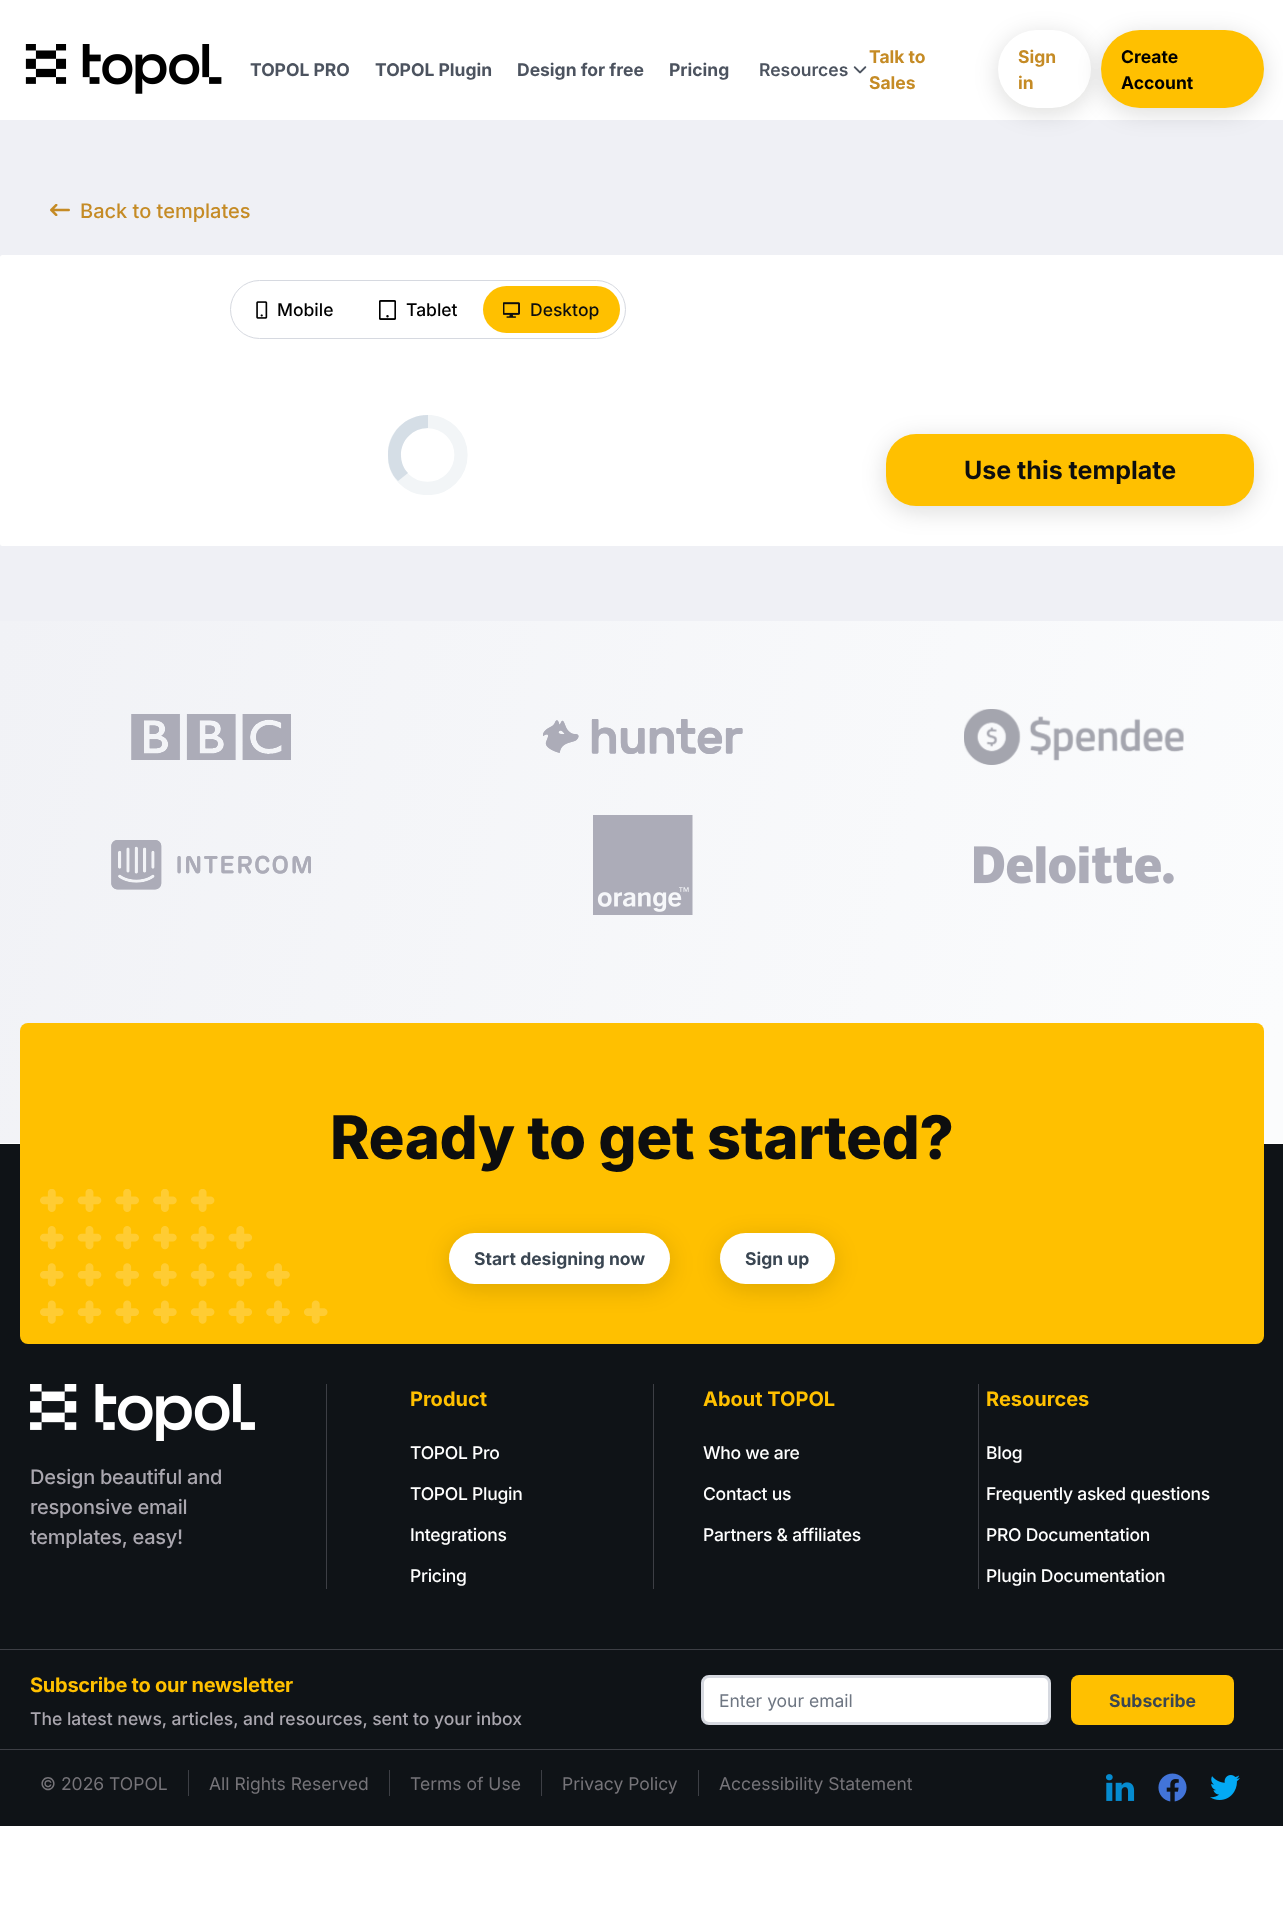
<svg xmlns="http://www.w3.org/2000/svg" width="1283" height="1918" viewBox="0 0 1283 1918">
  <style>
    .t1 { font: bold 17.5px Inter; fill: #4c535f; }
    .t2 { font: 600 17.5px Inter; fill: #4c535f; }
    .t3 { font: bold 17.5px Inter; fill: #c58b25; }
    .t4 { font: bold 17.5px Inter; fill: #000; }
    .t5 { font: 500 20px Inter; fill: #c58b25; }
    .t6 { font: 500 17.5px Inter; fill: #000; }
    .t7 { font: 500 17.5px Inter; fill: #0d0e0f; }
    .t8 { font: bold 25px Inter; fill: #0d0e0f; }
    .t9 { font: 800 60px Inter; letter-spacing: -0.5px; fill: #0d0e0f; }
    .t10 { font: bold 17.5px Inter; fill: #3a4652; }
    .t11 { font: 500 20px Inter; letter-spacing: -0.25px; fill: #aaa7af; }
    .t12 { font: bold 20px Inter; fill: #ffc000; }
    .t13 { font: 500 17.5px Inter; letter-spacing: -0.25px; fill: #fff; }
    .t14 { font: bold 20px Inter; letter-spacing: -0.25px; fill: #ffc000; }
    .t15 { font: 500 17.5px Inter; fill: #aaa7af; }
    .t16 { font: 17.5px Inter; fill: #6e7682; }
    .t17 { font: 17.5px Inter; fill: #767479; }
  </style>
  <defs>
    <clipPath id="clip1"><rect x="388" y="415" width="80" height="80"/></clipPath>
    <linearGradient id="g1" gradientUnits="userSpaceOnUse" x1="-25" y1="727" x2="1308" y2="1037"><stop offset="0" stop-color="#f1f2f6"/><stop offset="0.98" stop-color="#fbfcfd"/></linearGradient>
  </defs>
  <rect width="100%" height="100%" fill="#fff"/>
  <image x="25" y="44" width="197" height="50" href="images/1.png"/>
  <text x="250" y="76" class="t1">TOPOL PRO</text>
  <text x="375" y="76" class="t1">TOPOL Plugin</text>
  <text x="517" y="76" class="t1">Design for free</text>
  <text x="669" y="76" class="t1">Pricing</text>
  <text x="759" y="76" class="t2">Resources</text>
  <image x="853" y="66" width="14" height="8" href="images/2.png"/>
  <text x="869" y="63" class="t3">Talk to</text>
  <text x="869" y="89" class="t3">Sales</text>
  <rect x="0" y="120" width="1283" height="501" fill="#eff0f5"/>
  <rect x="998" y="35" width="93" height="78" rx="39" fill="#05040024" filter="blur(12.5px)"/>
  <rect x="998" y="30" width="93" height="78" rx="39" fill="#fff"/>
  <text x="1018" y="63" class="t3">Sign</text>
  <text x="1018" y="89" class="t3">in</text>
  <rect x="1101" y="35" width="163" height="78" rx="39" fill="#05040024" filter="blur(12.5px)"/>
  <rect x="1101" y="30" width="163" height="78" rx="39" fill="#ffc000"/>
  <text x="1121" y="63" class="t4">Create</text>
  <text x="1121" y="89" class="t4">Account</text>
  <image x="50" y="204" width="20" height="12" href="images/3.png"/>
  <text x="80" y="218" class="t5">Back to templates</text>
  <rect x="0" y="255" width="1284" height="291" rx="2.5" fill="#fff"/>
  <rect x="230.5" y="280.5" width="395" height="58" rx="29" fill="none" stroke="#d6d9e0"/>
  <image x="256" y="301" width="12" height="18" href="images/4.png"/>
  <text x="277" y="316" class="t6">Mobile</text>
  <image x="379" y="300" width="17" height="20" href="images/5.png"/>
  <text x="406" y="316" class="t6">Tablet</text>
  <rect x="483" y="286" width="137" height="47" rx="23.5" fill="#ffc000"/>
  <image x="503" y="302" width="17" height="16" href="images/6.png"/>
  <text x="530" y="316" class="t7">Desktop</text>
  <g clip-path="url(#clip1)">
    <circle cx="427.5" cy="455" r="33.5" fill="none" stroke="#f2f5f7" stroke-width="13.3"/>
  </g>
  <path d="M401 455C401 440 413 428 428 428V415C405 415 388 433 388 455ZM408 473C403 468 401 461 401 455H388C388 465 391 474 398 481Z" fill="#cbd5e0bf"/>
  <rect x="886" y="439" width="368" height="72" rx="30" fill="#05040024" filter="blur(12.5px)"/>
  <rect x="886" y="434" width="368" height="72" rx="30" fill="#ffc000"/>
  <text x="964" y="479" class="t8">Use this template</text>
  <rect x="0" y="621" width="1283" height="522" fill="url(#g1)"/>
  <image x="131" y="714" width="160" height="46" href="images/7.png"/>
  <image x="543" y="719" width="200" height="35" href="images/8.png"/>
  <image x="964" y="709" width="220" height="56" href="images/9.png"/>
  <image x="111" y="840" width="200" height="50" href="images/10.png"/>
  <image x="593" y="815" width="100" height="100" href="images/11.png"/>
  <image x="974" y="846" width="200" height="38" href="images/12.png"/>
  <rect x="0" y="1144" width="1283" height="682" fill="#0f1317"/>
  <rect x="20" y="1023" width="1244" height="321" rx="8" fill="#ffc000"/>
  <text x="330" y="1159" class="t9">Ready to get started?</text>
  <image x="40" y="1189" width="288" height="135" href="images/13.png"/>
  <rect x="449" y="1238" width="221" height="51" rx="25.5" fill="#05040024" filter="blur(12.5px)"/>
  <rect x="449" y="1233" width="221" height="51" rx="25.5" fill="#fff"/>
  <text x="474" y="1265" class="t10">Start designing now</text>
  <rect x="720" y="1238" width="115" height="51" rx="25.5" fill="#05040024" filter="blur(12.5px)"/>
  <rect x="720" y="1233" width="115" height="51" rx="25.5" fill="#fff"/>
  <text x="745" y="1265" class="t10">Sign up</text>
  <image x="30" y="1384" width="225" height="57" href="images/14.png"/>
  <text x="30" y="1484" class="t11">Design beautiful and</text>
  <text x="30" y="1514" class="t11">responsive email</text>
  <text x="30" y="1544" class="t11">templates, easy!</text>
  <rect x="326" y="1384" width="1" height="205" fill="#3d3f45"/>
  <text x="410" y="1406" class="t12">Product</text>
  <text x="410" y="1459" class="t13">TOPOL Pro</text>
  <text x="410" y="1500" class="t13">TOPOL Plugin</text>
  <text x="410" y="1541" class="t13">Integrations</text>
  <text x="410" y="1582" class="t13">Pricing</text>
  <rect x="653" y="1384" width="1" height="205" fill="#3d3f45"/>
  <text x="703" y="1406" class="t12">About TOPOL</text>
  <text x="703" y="1459" class="t13">Who we are</text>
  <text x="703" y="1500" class="t13">Contact us</text>
  <text x="703" y="1541" class="t13">Partners &amp; affiliates</text>
  <rect x="978" y="1384" width="1" height="205" fill="#3d3f45"/>
  <text x="986" y="1406" class="t12">Resources</text>
  <text x="986" y="1459" class="t13">Blog</text>
  <text x="986" y="1500" class="t13">Frequently asked questions</text>
  <text x="986" y="1541" class="t13">PRO Documentation</text>
  <text x="986" y="1582" class="t13">Plugin Documentation</text>
  <rect x="0" y="1649" width="1283" height="1" fill="#3d3f45"/>
  <text x="30" y="1692" class="t14">Subscribe to our newsletter</text>
  <text x="30" y="1725" class="t15">The latest news, articles, and resources, sent to your inbox</text>
  <rect x="702.5" y="1676.5" width="347" height="47" rx="6.5" fill="#fff" stroke="#d6d9e0" stroke-width="3"/>
  <text x="719" y="1707" class="t16">Enter your email</text>
  <rect x="1071" y="1675" width="163" height="50" rx="8" fill="#ffc000"/>
  <text x="1109" y="1707" class="t10">Subscribe</text>
  <rect x="0" y="1749" width="1283" height="1" fill="#3d3f45"/>
  <text x="40" y="1790" class="t17">© 2026 TOPOL</text>
  <rect x="188" y="1770" width="1" height="26" fill="#3d3f45"/>
  <text x="209" y="1790" class="t17">All Rights Reserved</text>
  <rect x="389" y="1770" width="1" height="26" fill="#3d3f45"/>
  <text x="410" y="1790" class="t17">Terms of Use</text>
  <rect x="541" y="1770" width="1" height="26" fill="#3d3f45"/>
  <text x="562" y="1790" class="t17">Privacy Policy</text>
  <rect x="698" y="1770" width="1" height="26" fill="#3d3f45"/>
  <text x="719" y="1790" class="t17">Accessibility Statement</text>
  <image x="1106" y="1774" width="29" height="27" href="images/15.png"/>
  <image x="1158" y="1773" width="29" height="29" href="images/16.png"/>
  <image x="1210" y="1775" width="30" height="25" href="images/17.png"/>
</svg>
